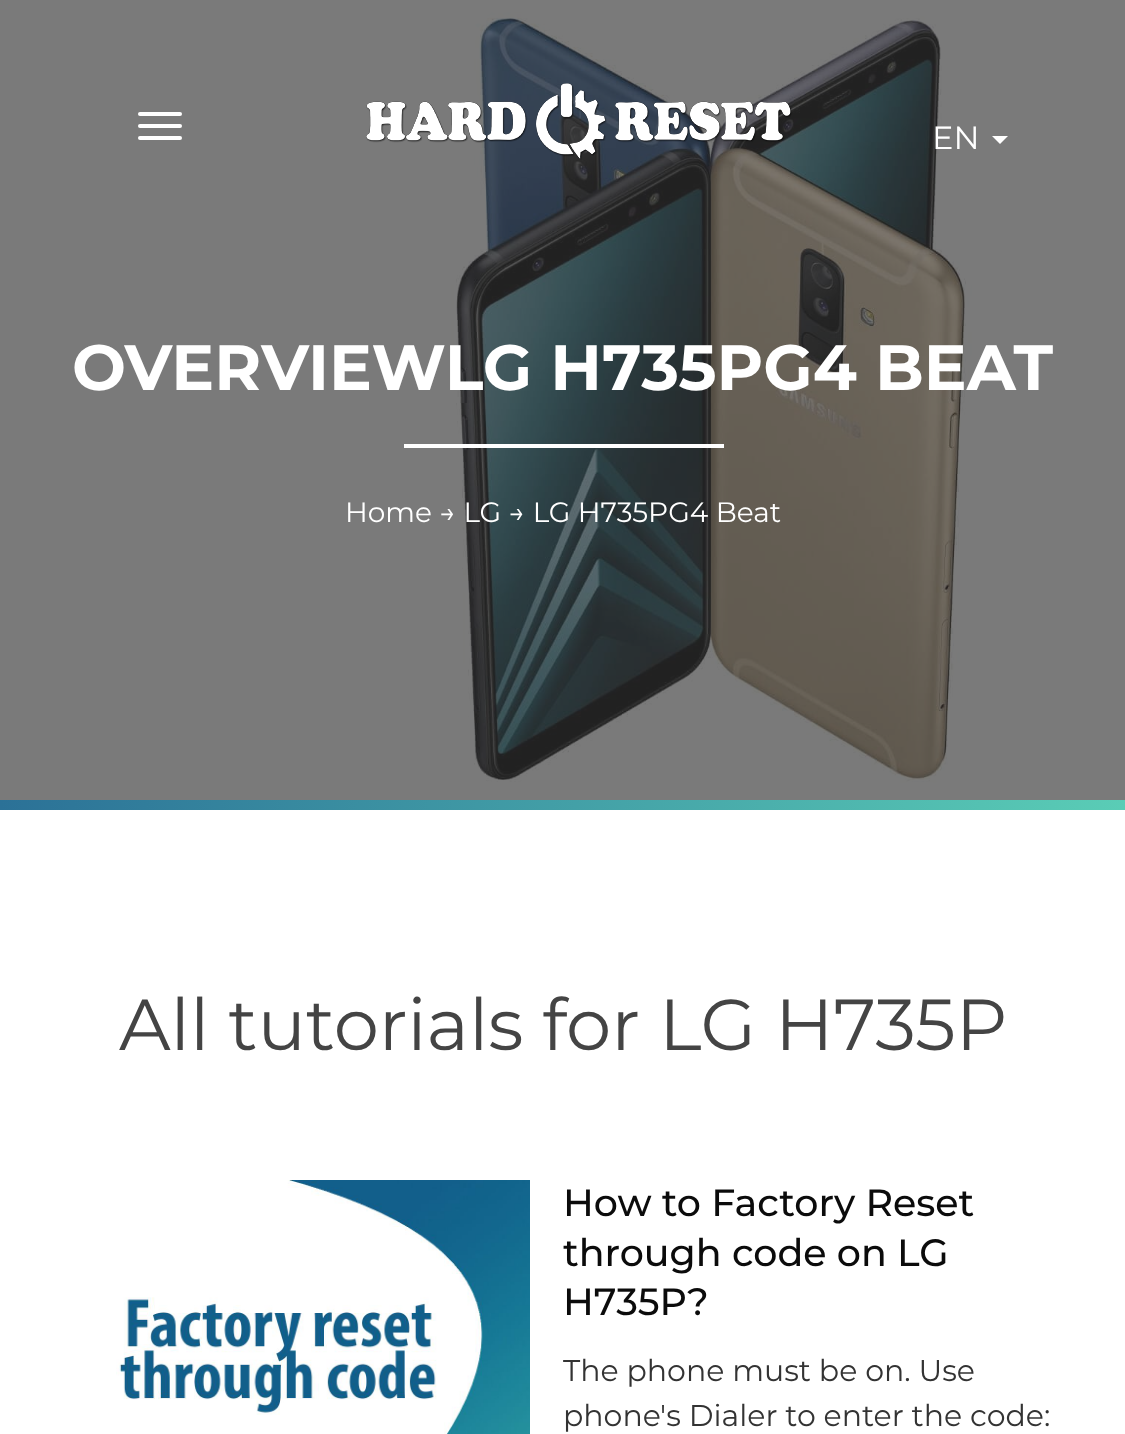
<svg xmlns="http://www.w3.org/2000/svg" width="1125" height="1434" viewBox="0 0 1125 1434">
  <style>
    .t1 { font: 32px Montserrat; fill: #fff; }
    .t2 { font: bold 64px Montserrat; fill: #fff; }
    .t3 { font: 28px Montserrat; fill: #fff; }
    .t4 { font: 72px Montserrat; fill: #444; }
    .t5 { font: 500 38px Montserrat; fill: #0b0b0b; }
    .t6 { font: 30px Montserrat; fill: #333; }
  </style>
  <defs>
    <linearGradient id="g1" gradientUnits="userSpaceOnUse" x1="0" y1="405" x2="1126" y2="405"><stop offset="0" stop-color="#2b7197"/><stop offset="1" stop-color="#5acdb6"/></linearGradient>
  </defs>
  <rect width="100%" height="100%" fill="#fff"/>
  <image x="0" y="0" width="1125" height="800" href="images/2.png"/>
  <rect x="138" y="112" width="44" height="4" rx="2" fill="#fff"/>
  <rect x="138" y="124" width="44" height="4" rx="2" fill="#fff"/>
  <rect x="138" y="136" width="44" height="4" rx="2" fill="#fff"/>
  <image x="366" y="83" width="426" height="77" href="images/1.png"/>
  <text x="932" y="149" class="t1">EN</text>
  <path d="M992 136H1008L1000 144Z" fill="#fff"/>
  <text x="72" y="390" class="t2">OVERVIEWLG H735PG4 BEAT</text>
  <rect x="404" y="444" width="320" height="4" fill="#fff"/>
  <text x="345" y="522" class="t3">Home → LG → LG H735PG4 Beat</text>
  <rect x="0" y="800" width="1125" height="10" fill="url(#g1)"/>
  <text x="119" y="1050" class="t4">All tutorials for LG H735P</text>
  <image x="116" y="1180" width="414" height="254" href="images/3.png"/>
  <text x="563" y="1216" class="t5">How to Factory Reset</text>
  <text x="563" y="1266" class="t5">through code on LG</text>
  <text x="563" y="1315" class="t5">H735P?</text>
  <text x="563" y="1381" class="t6">The phone must be on. Use</text>
  <text x="563" y="1426" class="t6">phone's Dialer to enter the code:</text>
</svg>
